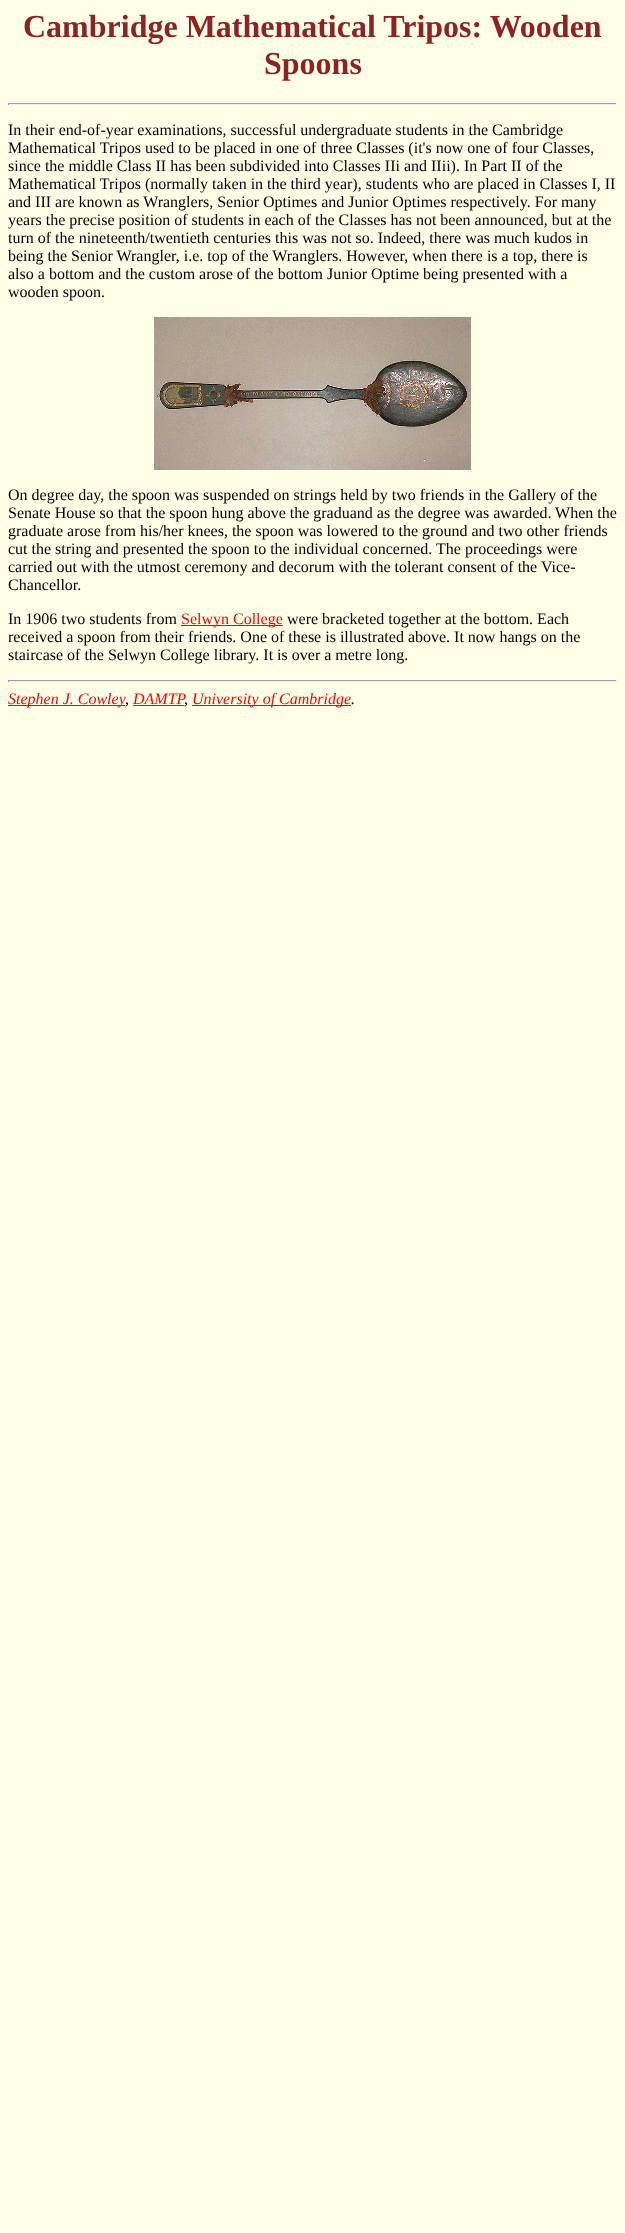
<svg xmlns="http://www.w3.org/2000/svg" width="625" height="2233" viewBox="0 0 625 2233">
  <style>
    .t1 { font: bold 32px Liberation Serif; fill: #8e2323; }
    .t2 { font: 16px Liberation Serif; fill: #000; }
    .t3 { font: 16px Liberation Serif; fill: #f00; }
    .t4 { font: italic 16px Liberation Serif; fill: #f00; }
    .t5 { font: italic 16px Liberation Serif; fill: #000; }
  </style>
  <rect width="100%" height="100%" fill="#ffffe8"/>
  <text x="23" y="37" class="t1">Cambridge Mathematical Tripos: Wooden</text>
  <text x="264" y="74" class="t1">Spoons</text>
  <rect x="8" y="103" width="609" height="1" fill="#9f9f9f"/>
  <rect x="616" y="103" width="1" height="2" fill="#eee"/>
  <rect x="8" y="104" width="609" height="1" fill="#eee"/>
  <rect x="8" y="103" width="1" height="2" fill="#9f9f9f"/>
  <text x="8" y="135" class="t2">In their end-of-year examinations, successful undergraduate students in the Cambridge</text>
  <text x="8" y="153" class="t2">Mathematical Tripos used to be placed in one of three Classes (it's now one of four Classes,</text>
  <text x="8" y="171" class="t2">since the middle Class II has been subdivided into Classes IIi and IIii). In Part II of the</text>
  <text x="8" y="189" class="t2">Mathematical Tripos (normally taken in the third year), students who are placed in Classes I, II</text>
  <text x="8" y="207" class="t2">and III are known as Wranglers, Senior Optimes and Junior Optimes respectively. For many</text>
  <text x="8" y="225" class="t2">years the precise position of students in each of the Classes has not been announced, but at the</text>
  <text x="8" y="243" class="t2">turn of the nineteenth/twentieth centuries this was not so. Indeed, there was much kudos in</text>
  <text x="8" y="261" class="t2">being the Senior Wrangler, i.e. top of the Wranglers. However, when there is a top, there is</text>
  <text x="8" y="279" class="t2">also a bottom and the custom arose of the bottom Junior Optime being presented with a</text>
  <text x="8" y="297" class="t2">wooden spoon.</text>
  <image x="154" y="317" width="317" height="153" href="images/1.png"/>
  <text x="8" y="500" class="t2">On degree day, the spoon was suspended on strings held by two friends in the Gallery of the</text>
  <text x="8" y="518" class="t2">Senate House so that the spoon hung above the graduand as the degree was awarded. When the</text>
  <text x="8" y="536" class="t2">graduate arose from his/her knees, the spoon was lowered to the ground and two other friends</text>
  <text x="8" y="554" class="t2">cut the string and presented the spoon to the individual concerned. The proceedings were</text>
  <text x="8" y="572" class="t2">carried out with the utmost ceremony and decorum with the tolerant consent of the Vice-</text>
  <text x="8" y="590" class="t2">Chancellor.</text>
  <text x="8" y="624" class="t2">In 1906 two students from</text>
  <rect x="181" y="625" width="102" height="1" fill="#f00"/>
  <text x="181" y="624" class="t3">Selwyn College</text>
  <text x="287" y="624" class="t2">were bracketed together at the bottom. Each</text>
  <text x="8" y="642" class="t2">received a spoon from their friends. One of these is illustrated above. It now hangs on the</text>
  <text x="8" y="660" class="t2">staircase of the Selwyn College library. It is over a metre long.</text>
  <rect x="8" y="680" width="609" height="1" fill="#9f9f9f"/>
  <rect x="616" y="680" width="1" height="2" fill="#eee"/>
  <rect x="8" y="681" width="609" height="1" fill="#eee"/>
  <rect x="8" y="680" width="1" height="2" fill="#9f9f9f"/>
  <rect x="8" y="705" width="117" height="1" fill="#f00"/>
  <text x="8" y="704" class="t4">Stephen J. Cowley</text>
  <text x="133" y="704" class="t4">DAMTP</text>
  <rect x="133" y="705" width="51" height="1" fill="#f00"/>
  <rect x="192" y="705" width="159" height="1" fill="#f00"/>
  <text x="192" y="704" class="t4">University of Cambridge</text>
  <text x="125" y="704" class="t5">,</text>
  <text x="184" y="704" class="t5">,</text>
  <text x="351" y="704" class="t5">.</text>
</svg>
